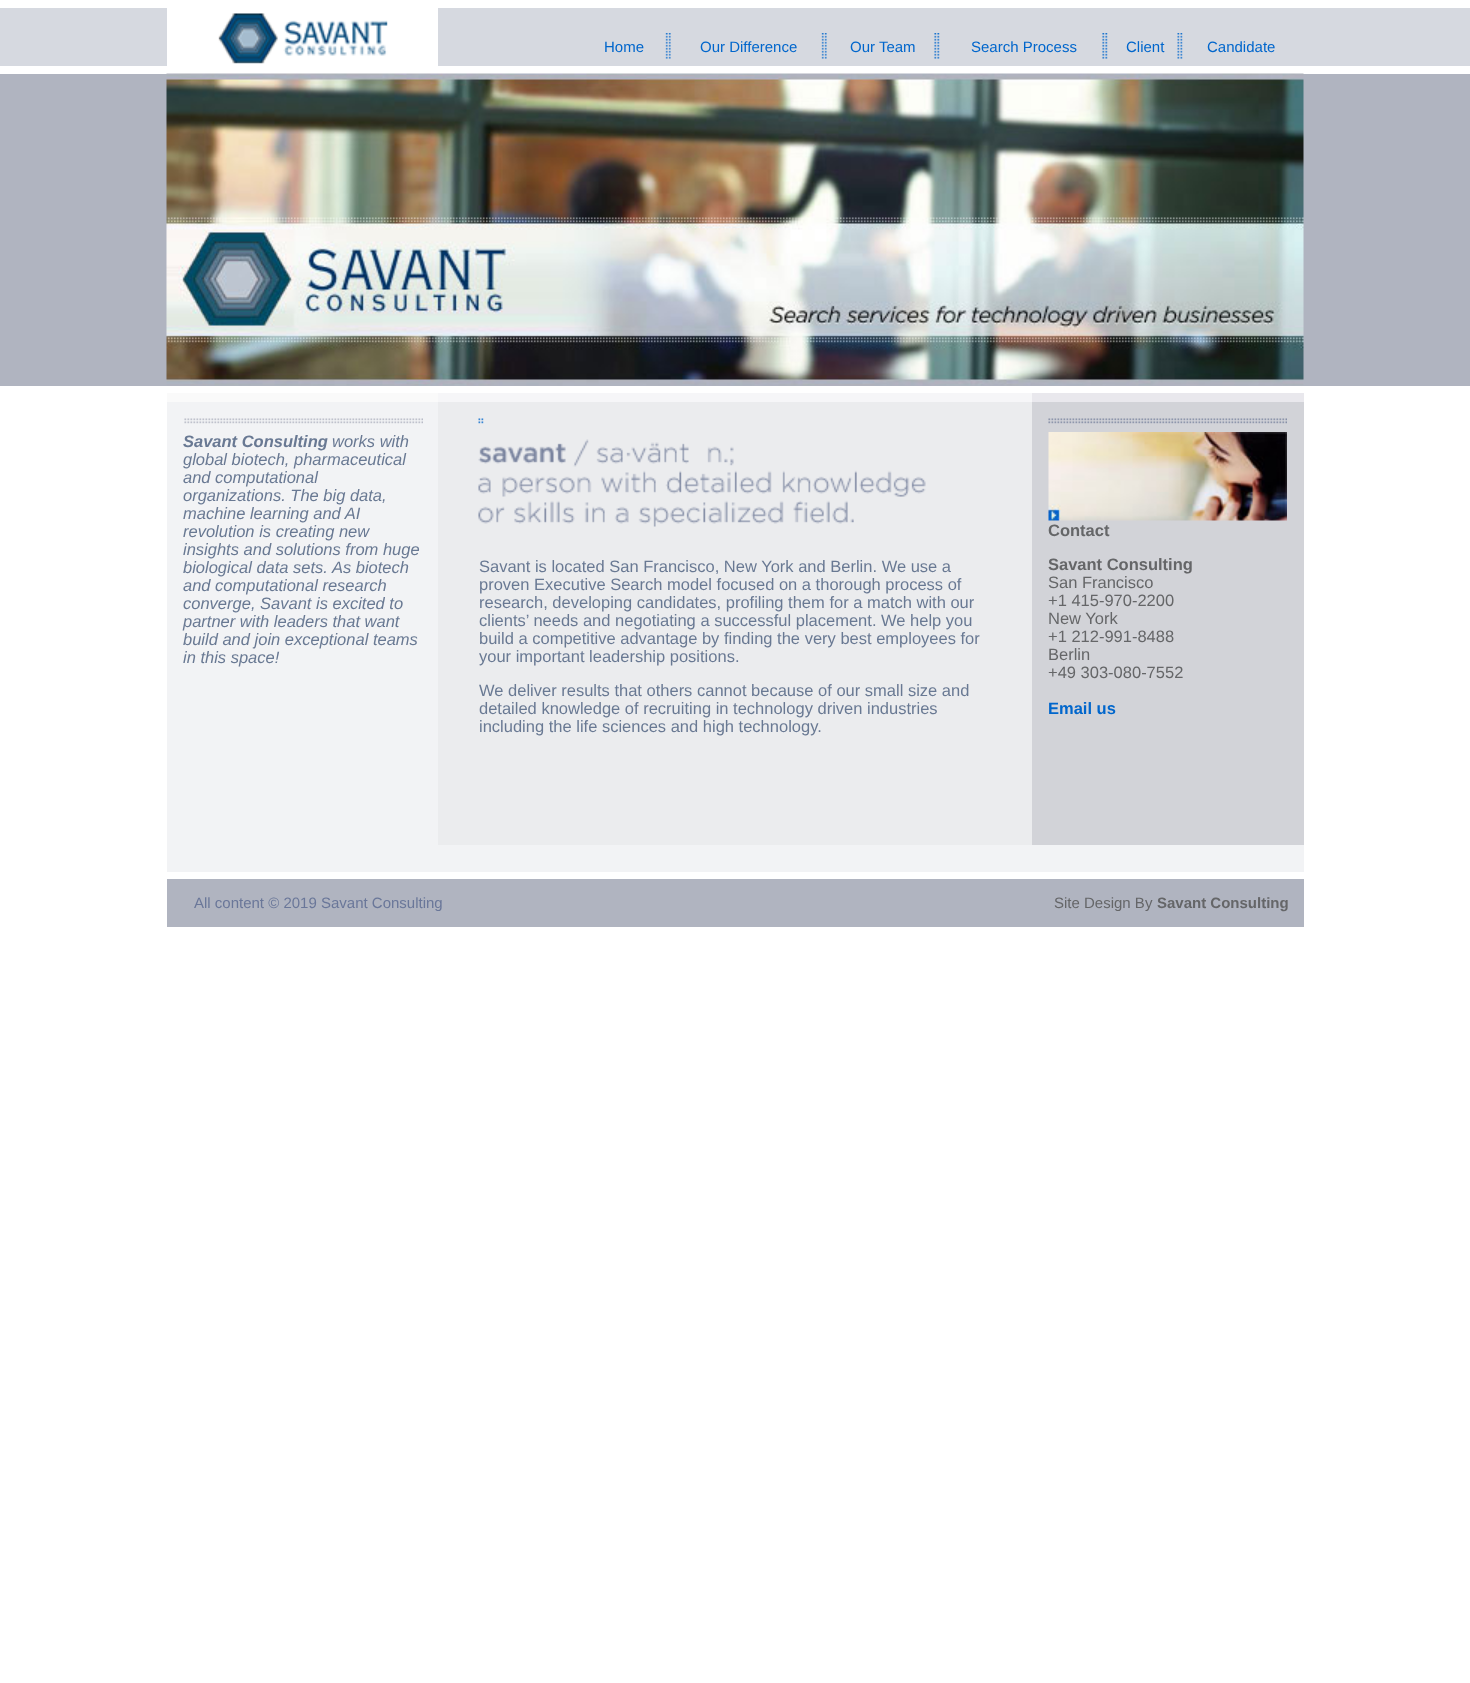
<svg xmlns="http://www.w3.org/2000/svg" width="1470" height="1683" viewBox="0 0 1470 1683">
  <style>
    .t1 { font: 15px Liberation Sans; fill: #06c; }
    .t2 { font: italic bold 16.5px Liberation Sans; fill: #697993; }
    .t3 { font: italic 16.5px Liberation Sans; fill: #697993; }
    .t4 { font: 16.5px Liberation Sans; fill: #697993; }
    .t5 { font: bold 16.5px Liberation Sans; fill: #656668; }
    .t6 { font: 16.5px Liberation Sans; fill: #656668; }
    .t7 { font: bold 16.5px Liberation Sans; fill: #06c; }
    .t8 { font: 15px Liberation Sans; fill: #6a7799; }
    .t9 { font: 15px Liberation Sans; fill: #656668; }
    .t10 { font: bold 15px Liberation Sans; fill: #656668; }
  </style>
  <rect width="100%" height="100%" fill="#fff"/>
  <rect x="0" y="8" width="1470" height="58" fill="#d6d9e0"/>
  <rect x="167" y="8" width="271" height="58" fill="#fff"/>
  <image x="218" y="13" width="170" height="51" href="images/1.png"/>
  <text x="604" y="52" class="t1">Home</text>
  <image x="665" y="33" width="6" height="26" href="images/2.png"/>
  <text x="700" y="52" class="t1">Our Difference</text>
  <image x="821" y="33" width="6" height="26" href="images/2.png"/>
  <text x="850" y="52" class="t1">Our Team</text>
  <image x="934" y="33" width="6" height="26" href="images/3.png"/>
  <text x="971" y="52" class="t1">Search Process</text>
  <image x="1102" y="33" width="6" height="26" href="images/3.png"/>
  <text x="1126" y="52" class="t1">Client</text>
  <image x="1177" y="33" width="6" height="26" href="images/4.png"/>
  <text x="1207" y="52" class="t1">Candidate</text>
  <rect x="0" y="74" width="1470" height="312" fill="#b0b4c0"/>
  <image x="166" y="73" width="1138" height="313" href="images/5.png"/>
  <rect x="167" y="393" width="271" height="9" fill="#fafafa"/>
  <rect x="438" y="393" width="594" height="9" fill="#f6f6f8"/>
  <rect x="1032" y="393" width="272" height="9" fill="#e9e8ed"/>
  <rect x="167" y="402" width="271" height="443" fill="#f2f3f5"/>
  <image x="184" y="418" width="239" height="6" href="images/6.png"/>
  <text x="183" y="447" class="t2">Savant Consulting</text>
  <text x="332" y="447" class="t3">works with</text>
  <text x="183" y="465" class="t3">global biotech, pharmaceutical</text>
  <text x="183" y="483" class="t3">and computational</text>
  <text x="183" y="501" class="t3">organizations. The big data,</text>
  <text x="183" y="519" class="t3">machine learning and AI</text>
  <text x="183" y="537" class="t3">revolution is creating new</text>
  <text x="183" y="555" class="t3">insights and solutions from huge</text>
  <text x="183" y="573" class="t3">biological data sets. As biotech</text>
  <text x="183" y="591" class="t3">and computational research</text>
  <text x="183" y="609" class="t3">converge, Savant is excited to</text>
  <text x="183" y="627" class="t3">partner with leaders that want</text>
  <text x="183" y="645" class="t3">build and join exceptional teams</text>
  <text x="183" y="663" class="t3">in this space!</text>
  <rect x="438" y="402" width="594" height="443" fill="#ebecee"/>
  <image x="478" y="418" width="6" height="6" href="images/7.png"/>
  <image x="478" y="439" width="448" height="88" href="images/8.png"/>
  <text x="479" y="572" class="t4">Savant is located San Francisco, New York and Berlin. We use a</text>
  <text x="479" y="590" class="t4">proven Executive Search model focused on a thorough process of</text>
  <text x="479" y="608" class="t4">research, developing candidates, profiling them for a match with our</text>
  <text x="479" y="626" class="t4">clients’ needs and negotiating a successful placement. We help you</text>
  <text x="479" y="644" class="t4">build a competitive advantage by finding the very best employees for</text>
  <text x="479" y="662" class="t4">your important leadership positions.</text>
  <text x="479" y="696" class="t4">We deliver results that others cannot because of our small size and</text>
  <text x="479" y="714" class="t4">detailed knowledge of recruiting in technology driven industries</text>
  <text x="479" y="732" class="t4">including the life sciences and high technology.</text>
  <rect x="1032" y="402" width="272" height="443" fill="#d2d3d8"/>
  <image x="1048" y="418" width="239" height="6" href="images/9.png"/>
  <image x="1048" y="432" width="239" height="89" href="images/10.png"/>
  <text x="1048" y="536" class="t5">Contact</text>
  <text x="1048" y="570" class="t5">Savant Consulting</text>
  <text x="1048" y="588" class="t6">San Francisco</text>
  <text x="1048" y="606" class="t6">+1 415-970-2200</text>
  <text x="1048" y="624" class="t6">New York</text>
  <text x="1048" y="642" class="t6">+1 212-991-8488</text>
  <text x="1048" y="660" class="t6">Berlin</text>
  <text x="1048" y="678" class="t6">+49 303-080-7552</text>
  <text x="1048" y="714" class="t7">Email us</text>
  <rect x="167" y="845" width="1137" height="27" fill="#f2f3f5"/>
  <rect x="167" y="879" width="1137" height="48" fill="#b0b4c0"/>
  <text x="194" y="908" class="t8">All content © 2019 Savant Consulting</text>
  <text x="1054" y="908" class="t9">Site Design By</text>
  <text x="1157" y="908" class="t10">Savant Consulting</text>
</svg>
